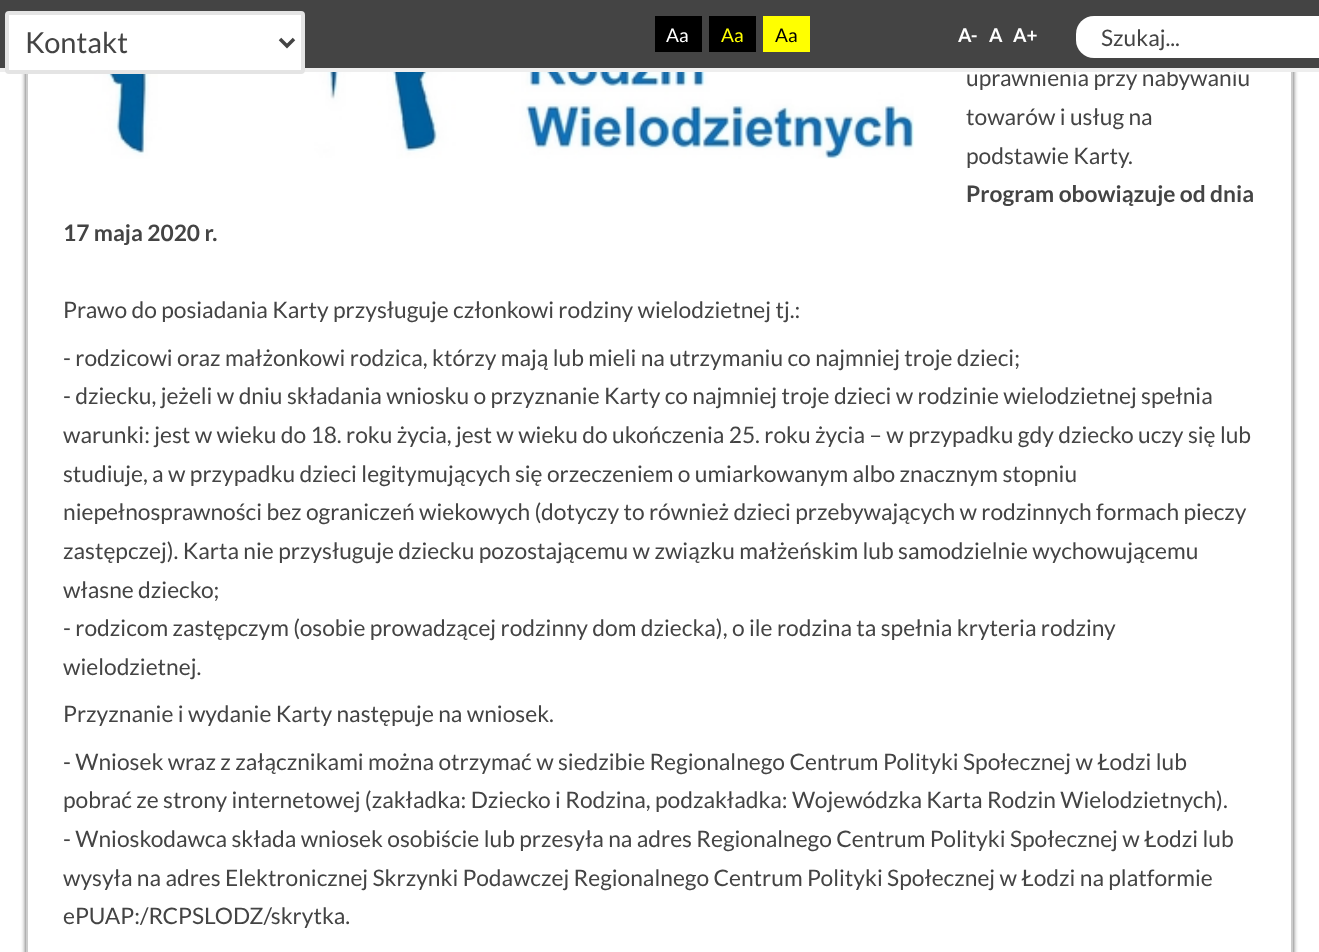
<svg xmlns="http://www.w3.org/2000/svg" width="1319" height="952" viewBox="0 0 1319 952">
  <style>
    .t1 { font: 22.75px Lato; fill: #444; }
    .t2 { font: 29px Lato; fill: #444; }
    .t3 { font: 19px Lato; fill: #fff; }
    .t4 { font: 19px Lato; fill: #ff0; }
    .t5 { font: 19px Lato; fill: #000; }
    .t6 { font: bold 19px Lato; fill: #fff; }
    .t7 { font: bold 22.75px Lato; fill: #444; }
  </style>
  <defs>
    <clipPath id="clip1"><path d="M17 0H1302V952H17ZM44-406H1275C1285-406 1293-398 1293-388V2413C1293 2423 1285 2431 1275 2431H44C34 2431 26 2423 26 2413V-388C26-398 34-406 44-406Z" clip-rule="evenodd"/></clipPath>
  </defs>
  <rect width="100%" height="100%" fill="#fff"/>
  <g clip-path="url(#clip1)">
    <rect x="26" y="-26" width="1267" height="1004" rx="18" fill="#444" filter="blur(2.5px)"/>
  </g>
  <rect x="27" y="-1" width="1265" height="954" fill="none" stroke="#ccc" stroke-width="2"/>
  <text x="966" y="86" class="t1">uprawnienia przy nabywaniu</text>
  <rect x="0" y="68" width="1319" height="4" fill="#eee"/>
  <rect x="0" y="0" width="1319" height="68" fill="#444"/>
  <image x="66" y="72" width="848" height="87" href="images/1.png"/>
  <rect x="7" y="13" width="296" height="59" rx="2" fill="#fff" stroke="#e4e4e4" stroke-width="4"/>
  <path d="M280 39L287 46L294 39" fill="none" stroke="#444" stroke-width="3.5"/>
  <text x="25" y="53" class="t2">Kontakt</text>
  <rect x="655" y="16" width="47" height="36" fill="#000"/>
  <text x="666" y="42" class="t3">Aa</text>
  <rect x="709" y="16" width="47" height="36" fill="#000"/>
  <text x="721" y="42" class="t4">Aa</text>
  <rect x="763" y="16" width="47" height="36" fill="#ff0"/>
  <text x="775" y="42" class="t5">Aa</text>
  <text x="958" y="42" class="t6">A-</text>
  <text x="989" y="42" class="t6">A</text>
  <text x="1013" y="42" class="t6">A+</text>
  <rect x="1076" y="16" width="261" height="42" rx="18" fill="#fff"/>
  <text x="1101" y="46" class="t1">Szukaj...</text>
  <text x="966" y="125" class="t1">towarów i usług na</text>
  <text x="966" y="164" class="t1">podstawie Karty.</text>
  <text x="966" y="202" class="t7">Program obowiązuje od dnia</text>
  <text x="63" y="241" class="t7">17 maja 2020 r.</text>
  <text x="63" y="318" class="t1">Prawo do posiadania Karty przysługuje członkowi rodziny wielodzietnej tj.:</text>
  <text x="63" y="366" class="t1">- rodzicowi oraz małżonkowi rodzica, którzy mają lub mieli na utrzymaniu co najmniej troje dzieci;</text>
  <text x="63" y="404" class="t1">- dziecku, jeżeli w dniu składania wniosku o przyznanie Karty co najmniej troje dzieci w rodzinie wielodzietnej spełnia</text>
  <text x="63" y="443" class="t1">warunki: jest w wieku do 18. roku życia, jest w wieku do ukończenia 25. roku życia – w przypadku gdy dziecko uczy się lub</text>
  <text x="63" y="482" class="t1">studiuje, a w przypadku dzieci legitymujących się orzeczeniem o umiarkowanym albo znacznym stopniu</text>
  <text x="63" y="520" class="t1">niepełnosprawności bez ograniczeń wiekowych (dotyczy to również dzieci przebywających w rodzinnych formach pieczy</text>
  <text x="63" y="559" class="t1">zastępczej). Karta nie przysługuje dziecku pozostającemu w związku małżeńskim lub samodzielnie wychowującemu</text>
  <text x="63" y="598" class="t1">własne dziecko;</text>
  <text x="63" y="636" class="t1">- rodzicom zastępczym (osobie prowadzącej rodzinny dom dziecka), o ile rodzina ta spełnia kryteria rodziny</text>
  <text x="63" y="675" class="t1">wielodzietnej.</text>
  <text x="63" y="722" class="t1">Przyznanie i wydanie Karty następuje na wniosek.</text>
  <text x="63" y="770" class="t1">- Wniosek wraz z załącznikami można otrzymać w siedzibie Regionalnego Centrum Polityki Społecznej w Łodzi lub</text>
  <text x="63" y="808" class="t1">pobrać ze strony internetowej (zakładka: Dziecko i Rodzina, podzakładka: Wojewódzka Karta Rodzin Wielodzietnych).</text>
  <text x="63" y="847" class="t1">- Wnioskodawca składa wniosek osobiście lub przesyła na adres Regionalnego Centrum Polityki Społecznej w Łodzi lub</text>
  <text x="63" y="886" class="t1">wysyła na adres Elektronicznej Skrzynki Podawczej Regionalnego Centrum Polityki Społecznej w Łodzi na platformie</text>
  <text x="63" y="924" class="t1">ePUAP:/RCPSLODZ/skrytka.</text>
</svg>
